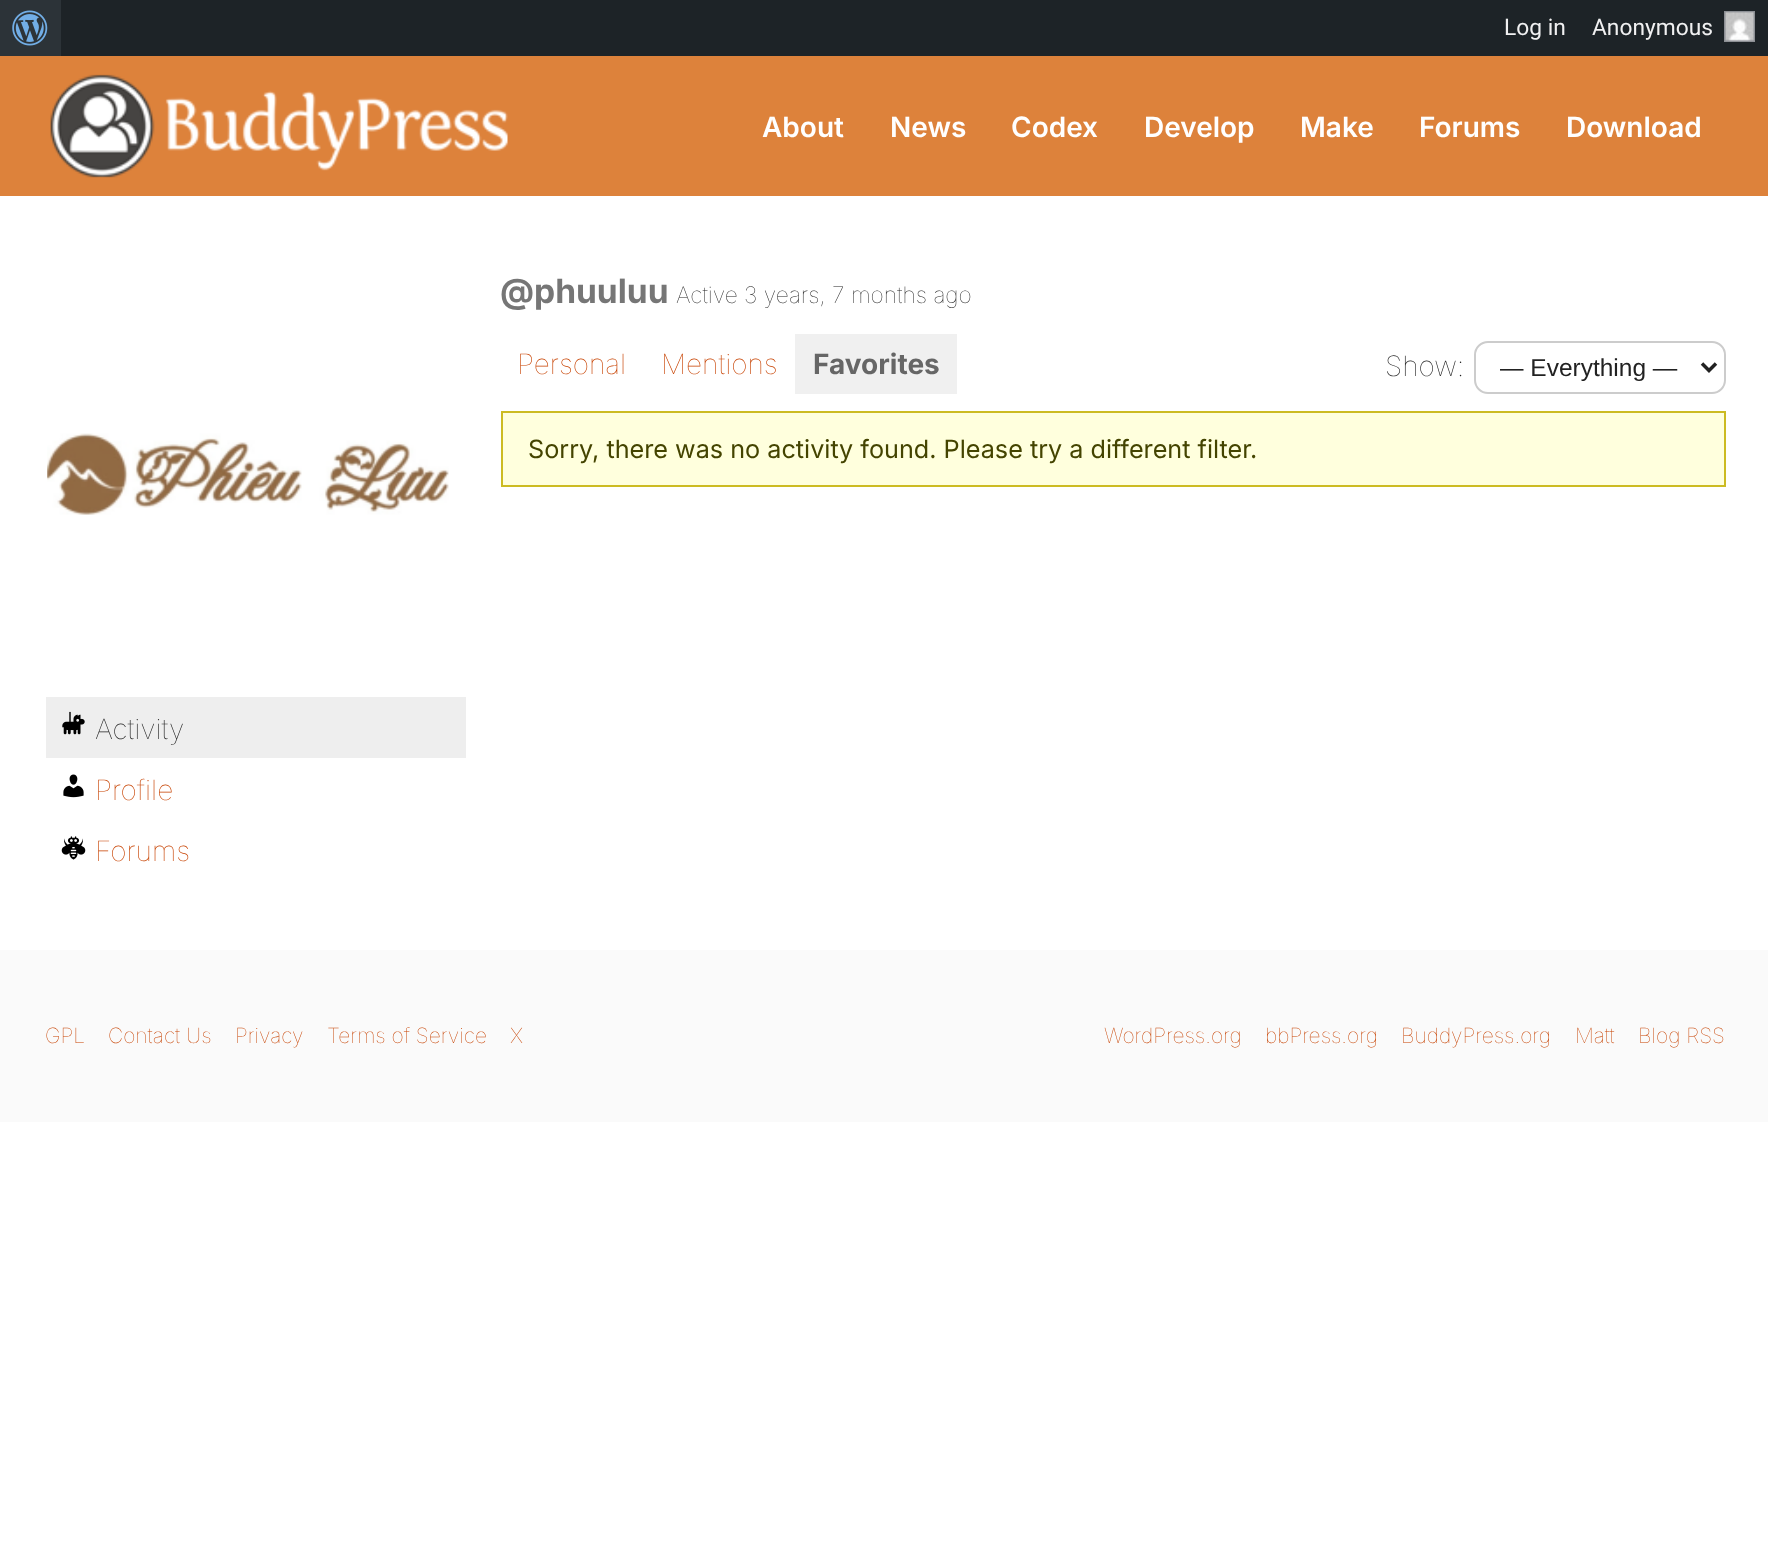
<svg xmlns="http://www.w3.org/2000/svg" width="1768" height="1561" viewBox="0 0 1768 1561">
  <style>
    .t1 { font: 22.75px Roboto; fill: #f0f0f1; }
    .t2 { font: 600 28px Inter; fill: #fff; }
    .t3 { font: bold 33.5px Inter; fill: #767676; }
    .t4 { font: 100 22.75px Inter; fill: #222; }
    .t5 { font: 100 28px Inter; fill: #c74200; }
    .t6 { font: bold 28px Inter; fill: #666; }
    .t7 { font: 100 28px Inter; fill: #222; }
    .t8 { font: 24.5px Liberation Sans; fill: #222; }
    .t9 { font: 25.2px Inter; fill: #440; }
    .t10 { font: 100 21px Inter; fill: #c74200; }
  </style>
  <defs>
    <clipPath id="clip1"><rect x="1500" y="352" width="178" height="31"/></clipPath>
  </defs>
  <rect width="100%" height="100%" fill="#fff"/>
  <rect x="61" y="0" width="1707" height="56" fill="#1d2327"/>
  <rect x="0" y="0" width="61" height="56" fill="#2c3338"/>
  <image x="12" y="10" width="36" height="36" href="images/1.png"/>
  <text x="1504" y="35" class="t1">Log in</text>
  <rect x="1725" y="12" width="29" height="29" fill="none" stroke="#8c8f94" stroke-width="2"/>
  <text x="1592" y="35" class="t1">Anonymous</text>
  <image x="1725" y="12" width="29" height="29" href="images/2.png"/>
  <rect x="0" y="56" width="1768" height="140" fill="#dd823b"/>
  <image x="50" y="74" width="458" height="104" href="images/3.png"/>
  <text x="762" y="137" class="t2">About</text>
  <text x="890" y="137" class="t2">News</text>
  <text x="1011" y="137" class="t2">Codex</text>
  <text x="1144" y="137" class="t2">Develop</text>
  <text x="1300" y="137" class="t2">Make</text>
  <text x="1419" y="137" class="t2">Forums</text>
  <text x="1566" y="137" class="t2">Download</text>
  <text x="500" y="303" class="t3">@phuuluu</text>
  <text x="676" y="303" class="t4">Active 3 years, 7 months ago</text>
  <text x="517" y="374" class="t5">Personal</text>
  <text x="661" y="374" class="t5">Mentions</text>
  <rect x="795" y="334" width="162" height="60" fill="#f0f0f0"/>
  <text x="813" y="374" class="t6">Favorites</text>
  <text x="1385" y="376" class="t7">Show:</text>
  <rect x="1475" y="342" width="250" height="51" rx="13" fill="none" stroke="#ccc" stroke-width="2"/>
  <path d="M1702 363.5L1709 370.5L1716 363.5" fill="none" stroke="#222" stroke-width="3.5"/>
  <g clip-path="url(#clip1)">
    <text x="1499" y="376" class="t8">— Everything —</text>
  </g>
  <rect x="502" y="412" width="1223" height="74" fill="#ffd" stroke="#cb2" stroke-width="2"/>
  <text x="528" y="458" class="t9">Sorry, there was no activity found. Please try a different filter.</text>
  <image x="47" y="433" width="402" height="82" href="images/4.png"/>
  <rect x="46" y="697" width="420" height="61" fill="#eee"/>
  <image x="62" y="711" width="23" height="24" href="images/5.png"/>
  <text x="95" y="739" class="t7">Activity</text>
  <image x="63" y="774" width="21" height="24" href="images/6.png"/>
  <text x="95" y="800" class="t5">Profile</text>
  <image x="61" y="836" width="25" height="24" href="images/7.png"/>
  <text x="95" y="861" class="t5">Forums</text>
  <rect x="0" y="950" width="1768" height="172" fill="#fafafa"/>
  <text x="45" y="1043" class="t10">GPL</text>
  <text x="108" y="1043" class="t10">Contact Us</text>
  <text x="235" y="1043" class="t10">Privacy</text>
  <text x="327" y="1043" class="t10">Terms of Service</text>
  <text x="510" y="1043" class="t10">X</text>
  <text x="1104" y="1043" class="t10">WordPress.org</text>
  <text x="1265" y="1043" class="t10">bbPress.org</text>
  <text x="1401" y="1043" class="t10">BuddyPress.org</text>
  <text x="1575" y="1043" class="t10">Matt</text>
  <text x="1638" y="1043" class="t10">Blog RSS</text>
</svg>
